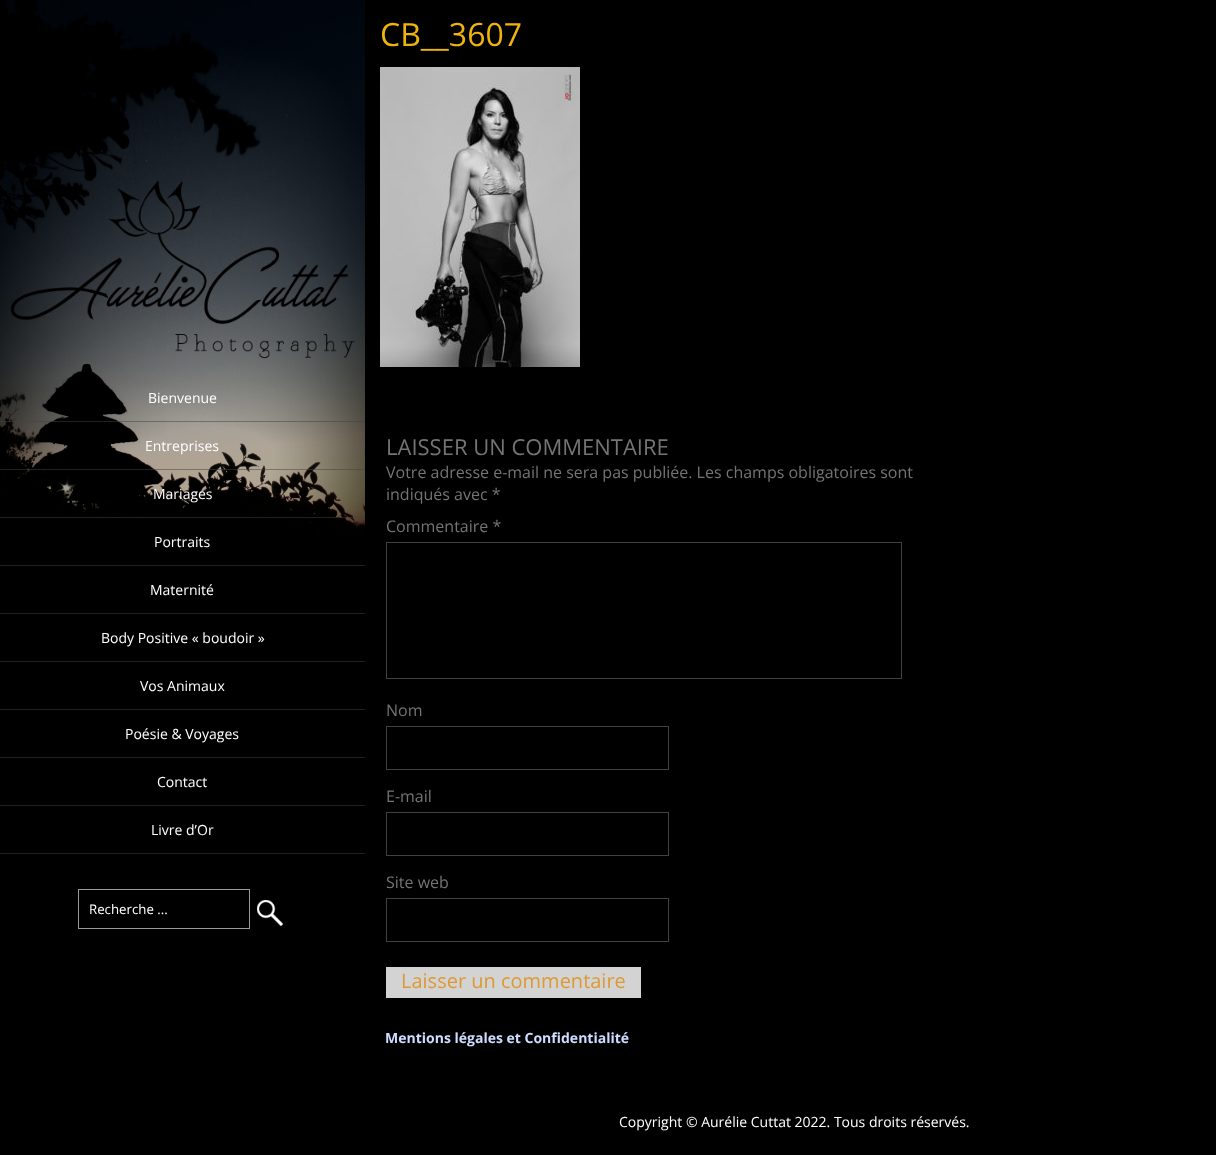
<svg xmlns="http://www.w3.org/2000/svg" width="1216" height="1155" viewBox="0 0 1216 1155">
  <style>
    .t1 { font: 14px Open Sans; fill: #fff; }
    .t2 { font: 13.25px Open Sans; fill: #fff; }
    .t3 { font: 32px Open Sans; fill: #efb30e; }
    .t4 { font: 22px Open Sans; fill: #747474; }
    .t5 { font: 16px Open Sans; fill: #747474; }
    .t6 { font: 20px Open Sans; fill: #d93; }
    .t7 { font: bold 14px Open Sans; fill: #cdf; }
  </style>
  <rect width="100%" height="100%" fill="#000"/>
  <image x="0" y="0" width="365" height="535" href="images/1.png"/>
  <image x="10" y="180" width="345" height="179" href="images/2.png"/>
  <rect x="0" y="421" width="365" height="1" fill="#41414180"/>
  <text x="148" y="403" class="t1">Bienvenue</text>
  <rect x="0" y="469" width="365" height="1" fill="#41414180"/>
  <text x="145" y="451" class="t1">Entreprises</text>
  <rect x="0" y="517" width="365" height="1" fill="#41414180"/>
  <text x="153" y="499" class="t1">Mariages</text>
  <rect x="0" y="565" width="365" height="1" fill="#212121"/>
  <text x="154" y="547" class="t1">Portraits</text>
  <rect x="0" y="613" width="365" height="1" fill="#212121"/>
  <text x="150" y="595" class="t1">Maternité</text>
  <rect x="0" y="661" width="365" height="1" fill="#212121"/>
  <text x="101" y="643" class="t1">Body Positive « boudoir »</text>
  <rect x="0" y="709" width="365" height="1" fill="#212121"/>
  <text x="140" y="691" class="t1">Vos Animaux</text>
  <rect x="0" y="757" width="365" height="1" fill="#212121"/>
  <text x="125" y="739" class="t1">Poésie &amp; Voyages</text>
  <rect x="0" y="805" width="365" height="1" fill="#212121"/>
  <text x="157" y="787" class="t1">Contact</text>
  <rect x="0" y="853" width="365" height="1" fill="#212121"/>
  <text x="151" y="835" class="t1">Livre d’Or</text>
  <rect x="78.5" y="889.5" width="171" height="39" fill="none" stroke="#999"/>
  <text x="89" y="914" class="t2">Recherche ...</text>
  <image x="257" y="900" width="27" height="27" href="images/3.png"/>
  <text x="380" y="46" class="t3">CB__3607</text>
  <image x="380" y="67" width="200" height="300" href="images/4.png"/>
  <text x="386" y="455" class="t4">LAISSER UN COMMENTAIRE</text>
  <text x="386" y="478" class="t5">Votre adresse e-mail ne sera pas publiée. Les champs obligatoires sont</text>
  <text x="386" y="500" class="t5">indiqués avec *</text>
  <text x="386" y="532" class="t5">Commentaire *</text>
  <rect x="386.5" y="542.5" width="515" height="136" fill="none" stroke="#414141"/>
  <text x="386" y="716" class="t5">Nom</text>
  <rect x="386.5" y="726.5" width="282" height="43" fill="none" stroke="#414141"/>
  <text x="386" y="802" class="t5">E-mail</text>
  <rect x="386.5" y="812.5" width="282" height="43" fill="none" stroke="#414141"/>
  <text x="386" y="888" class="t5">Site web</text>
  <rect x="386.5" y="898.5" width="282" height="43" fill="none" stroke="#414141"/>
  <rect x="386" y="967" width="255" height="31" fill="#d3d3d3"/>
  <text x="401" y="988" class="t6">Laisser un commentaire</text>
  <text x="385" y="1043" class="t7">Mentions légales et Confidentialité</text>
  <text x="619" y="1127" class="t1">Copyright © Aurélie Cuttat 2022. Tous droits réservés.</text>
</svg>
